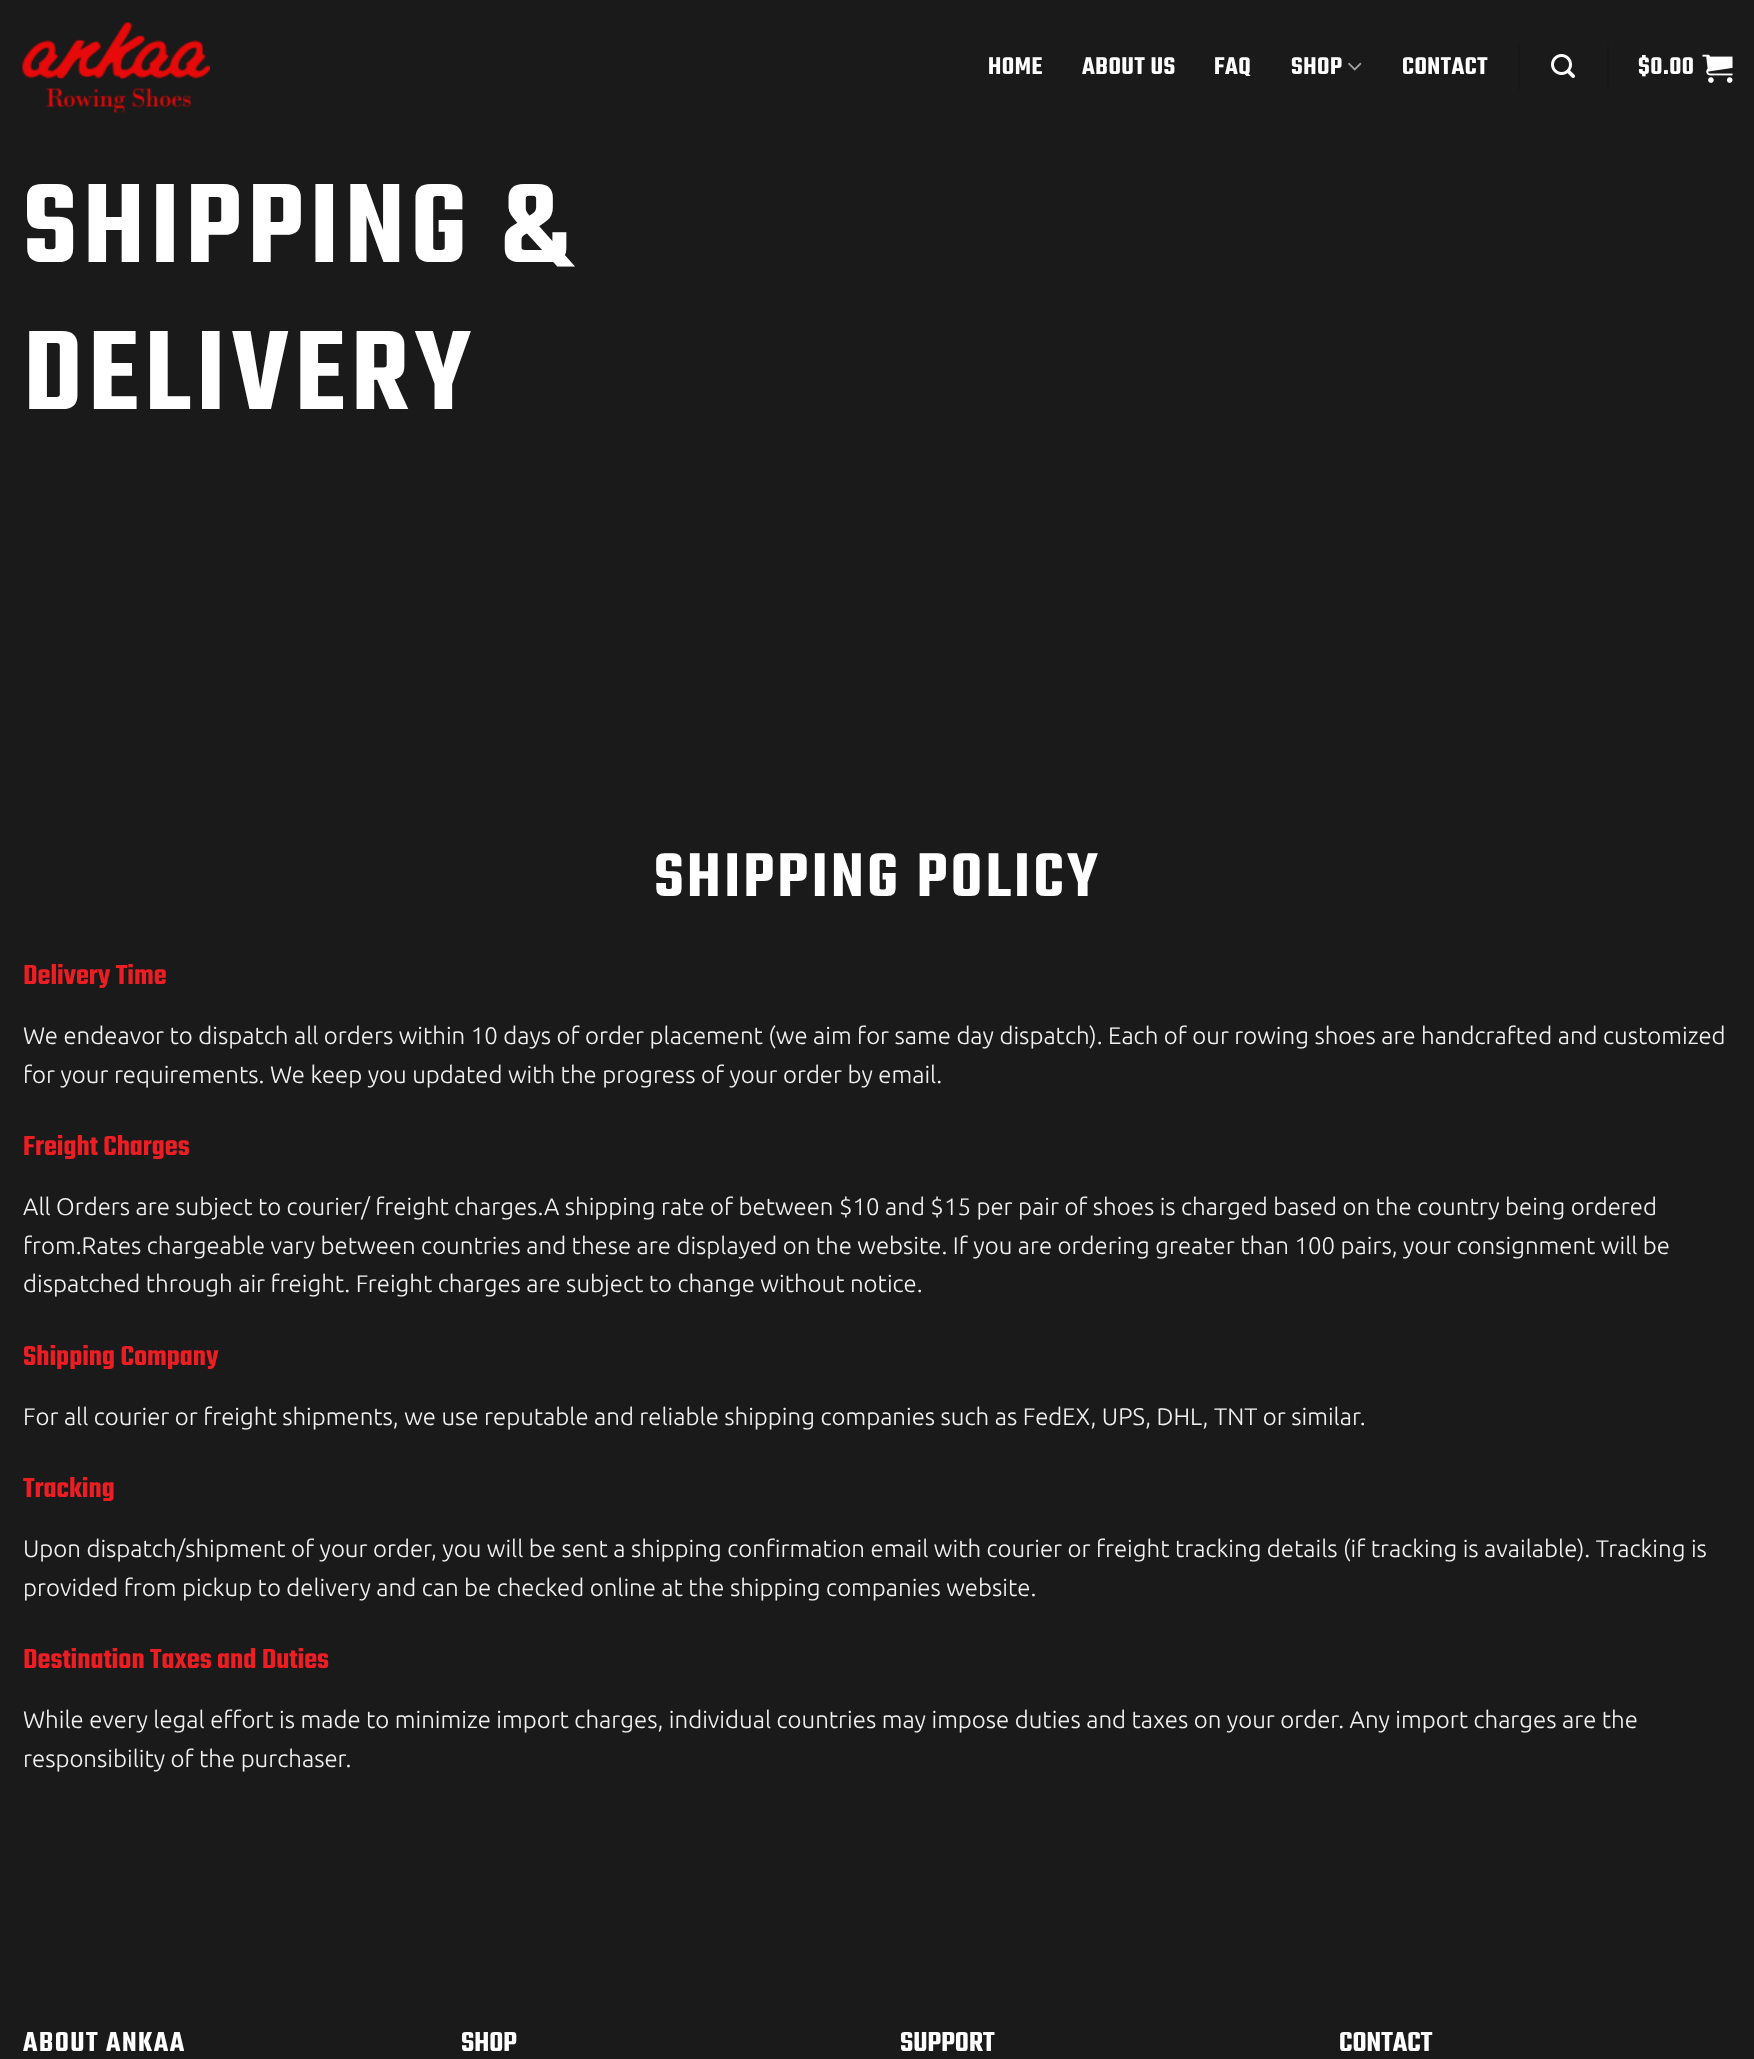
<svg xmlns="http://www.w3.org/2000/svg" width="1754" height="2059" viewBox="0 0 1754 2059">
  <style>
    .t1 { font: 600 26.5px Teko; letter-spacing: 0.5px; fill: #fff; }
    .t2 { font: 600 122.5px Teko; letter-spacing: 6.1px; fill: #fff; }
    .t3 { font: 600 67.25px Teko; letter-spacing: 3.4px; fill: #fff; }
    .t4 { font: 600 30px Teko; fill: #ed1d24; }
    .t5 { font: 300 24px Ubuntu; fill: #f1f1f1; }
    .t6 { font: 600 30px Teko; letter-spacing: 1.5px; fill: #fff; }
    .t7 { font: 600 30px Teko; fill: #fff; }
  </style>
  <rect width="100%" height="100%" fill="#1a1a1a"/>
  <image x="22" y="22" width="188" height="91" href="images/1.png"/>
  <text x="988" y="74" class="t1">HOME</text>
  <text x="1082" y="74" class="t1">ABOUT US</text>
  <text x="1214" y="74" class="t1">FAQ</text>
  <text x="1291" y="74" class="t1">SHOP</text>
  <image x="1348" y="62" width="14" height="9" href="images/2.png"/>
  <text x="1402" y="74" class="t1">CONTACT</text>
  <rect x="1518" y="45" width="2" height="45" fill="#171717"/>
  <image x="1551" y="54" width="24" height="24" href="images/3.png"/>
  <rect x="1607" y="45" width="2" height="45" fill="#171717"/>
  <text x="1638" y="74" class="t1">$0.00</text>
  <image x="1702" y="54" width="31" height="29" href="images/4.png"/>
  <text x="23" y="262" class="t2">SHIPPING &amp;</text>
  <text x="23" y="409" class="t2">DELIVERY</text>
  <text x="654" y="896" class="t3">SHIPPING POLICY</text>
  <text x="23" y="984" class="t4">Delivery Time</text>
  <text x="23" y="1044" class="t5">We endeavor to dispatch all orders within 10 days of order placement (we aim for same day dispatch). Each of our rowing shoes are handcrafted and customized</text>
  <text x="23" y="1083" class="t5">for your requirements. We keep you updated with the progress of your order by email.</text>
  <text x="23" y="1155" class="t4">Freight Charges</text>
  <text x="23" y="1215" class="t5">All Orders are subject to courier/ freight charges.A shipping rate of between $10 and $15 per pair of shoes is charged based on the country being ordered</text>
  <text x="23" y="1254" class="t5">from.Rates chargeable vary between countries and these are displayed on the website. If you are ordering greater than 100 pairs, your consignment will be</text>
  <text x="23" y="1292" class="t5">dispatched through air freight. Freight charges are subject to change without notice.</text>
  <text x="23" y="1365" class="t4">Shipping Company</text>
  <text x="23" y="1425" class="t5">For all courier or freight shipments, we use reputable and reliable shipping companies such as FedEX, UPS, DHL, TNT or similar.</text>
  <text x="23" y="1497" class="t4">Tracking</text>
  <text x="23" y="1557" class="t5">Upon dispatch/shipment of your order, you will be sent a shipping confirmation email with courier or freight tracking details (if tracking is available). Tracking is</text>
  <text x="23" y="1596" class="t5">provided from pickup to delivery and can be checked online at the shipping companies website.</text>
  <text x="23" y="1668" class="t4">Destination Taxes and Duties</text>
  <text x="23" y="1728" class="t5">While every legal effort is made to minimize import charges, individual countries may impose duties and taxes on your order. Any import charges are the</text>
  <text x="23" y="1767" class="t5">responsibility of the purchaser.</text>
  <text x="23" y="2051" class="t6">ABOUT ANKAA</text>
  <text x="461" y="2051" class="t7">SHOP</text>
  <text x="900" y="2051" class="t7">SUPPORT</text>
  <text x="1339" y="2051" class="t7">CONTACT</text>
</svg>
